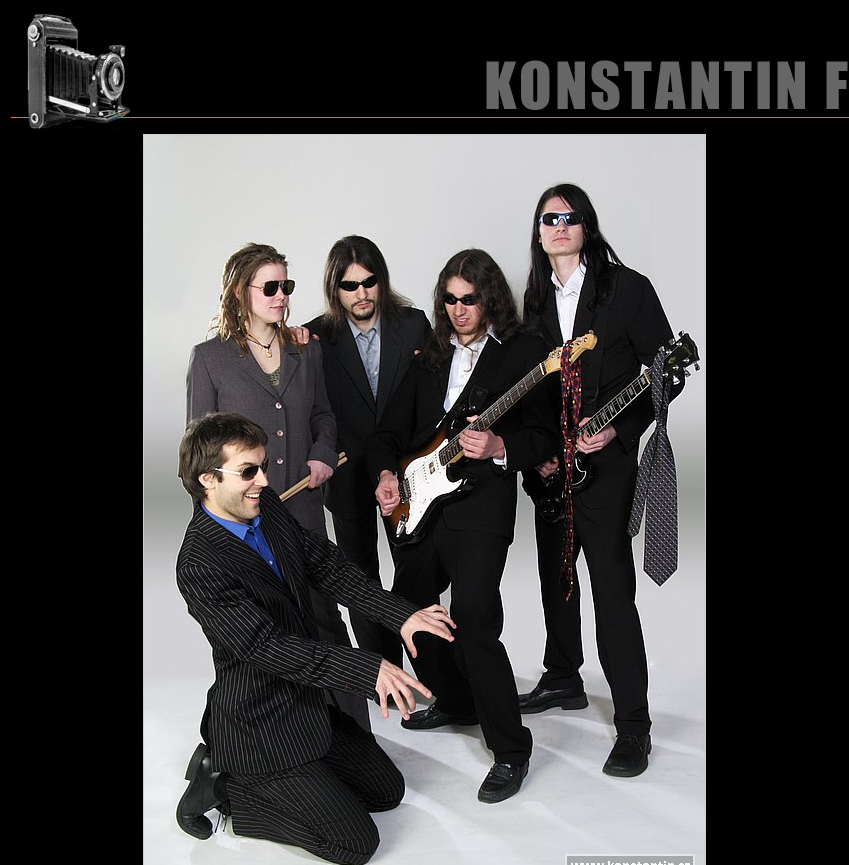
<svg xmlns="http://www.w3.org/2000/svg" width="849" height="865" viewBox="0 0 849 865">
  <rect width="100%" height="100%" fill="#000"/>
  <image x="11" y="13" width="838" height="118" href="images/1.png"/>
  <image x="143" y="134" width="563" height="731" href="images/2.png"/>
</svg>
